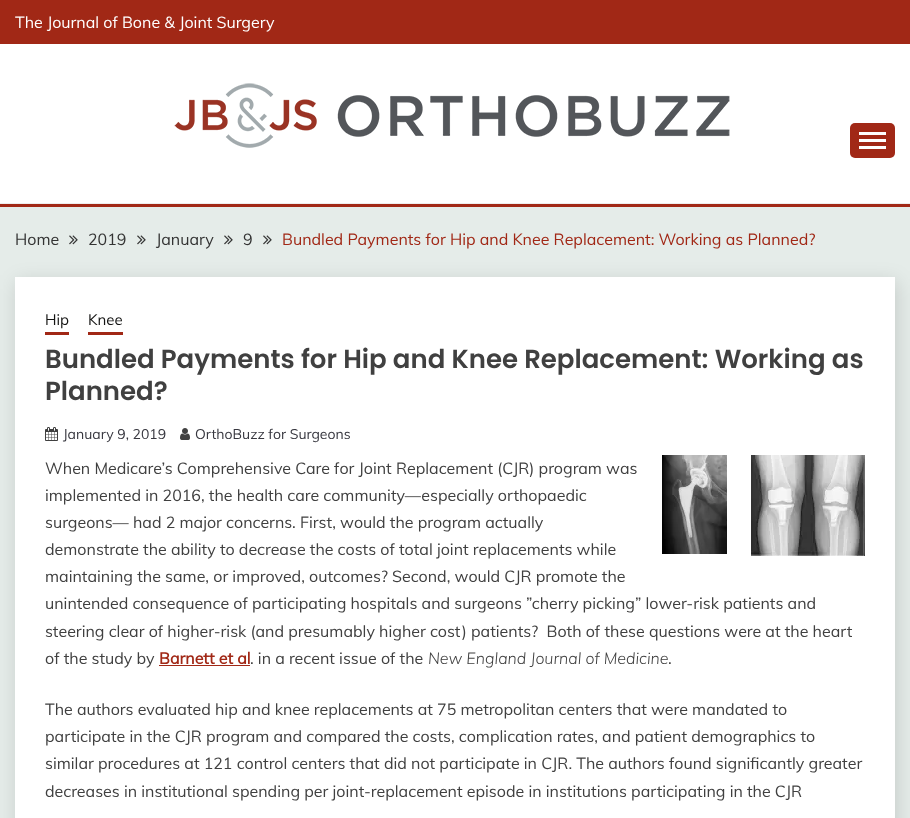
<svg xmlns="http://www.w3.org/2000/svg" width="910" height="818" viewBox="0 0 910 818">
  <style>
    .t1 { font: 16px Muli; fill: #fff; }
    .t2 { font: 16px Muli; fill: #333; }
    .t3 { font: 16px Muli; fill: #a12816; }
    .t4 { font: 15px Muli; fill: #141413; }
    .t5 { font: 600 26px Poppins; fill: #404040; }
    .t6 { font: 14px Muli; fill: #37373f; }
    .t7 { font: 16px Muli; fill: #404040; }
    .t8 { font: bold 16px Muli; fill: #a12816; }
    .t9 { font: italic 300 16px Muli; fill: #404040; }
  </style>
  <rect width="100%" height="100%" fill="#e5ece9"/>
  <rect x="0" y="44" width="910" height="159" fill="#fff"/>
  <rect x="0" y="0" width="910" height="44" fill="#a12816"/>
  <text x="15" y="28" class="t1">The Journal of Bone &amp; Joint Surgery</text>
  <rect x="0" y="203" width="910" height="1" fill="#eee"/>
  <image x="174" y="83" width="556" height="65" href="images/1.png"/>
  <rect x="850" y="123" width="45" height="35" rx="5" fill="#a12816"/>
  <rect x="859" y="132" width="27" height="3" fill="#fff"/>
  <rect x="859" y="139" width="27" height="3" fill="#fff"/>
  <rect x="859" y="146" width="27" height="3" fill="#fff"/>
  <rect x="0" y="204" width="910" height="3" fill="#a12816"/>
  <text x="15" y="245" class="t2">Home</text>
  <image x="69" y="235" width="9" height="10" href="images/2.png"/>
  <text x="88" y="245" class="t2">2019</text>
  <image x="137" y="235" width="9" height="10" href="images/2.png"/>
  <text x="156" y="245" class="t2">January</text>
  <image x="224" y="235" width="9" height="10" href="images/2.png"/>
  <text x="243" y="245" class="t2">9</text>
  <image x="263" y="235" width="9" height="10" href="images/2.png"/>
  <text x="282" y="245" class="t3">Bundled Payments for Hip and Knee Replacement: Working as Planned?</text>
  <rect x="17" y="282" width="880" height="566" fill="#00000024" filter="blur(10px)"/>
  <rect x="15" y="277" width="880" height="541" fill="#fff"/>
  <text x="45" y="325" class="t4">Hip</text>
  <rect x="45" y="332" width="24" height="3" fill="#a12816"/>
  <text x="88" y="325" class="t4">Knee</text>
  <rect x="88" y="332" width="35" height="3" fill="#a12816"/>
  <text x="45" y="368" class="t5">Bundled Payments for Hip and Knee Replacement: Working as</text>
  <text x="45" y="400" class="t5">Planned?</text>
  <image x="45" y="427" width="13" height="14" href="images/3.png"/>
  <text x="63" y="439" class="t6">January 9, 2019</text>
  <image x="180" y="428" width="10" height="12" href="images/4.png"/>
  <text x="195" y="439" class="t6">OrthoBuzz for Surgeons</text>
  <text x="45" y="474" class="t7">When Medicare’s Comprehensive Care for Joint Replacement (CJR) program was</text>
  <image x="662" y="455" width="65" height="99" href="images/5.png"/>
  <image x="751" y="455" width="114" height="101" href="images/6.png"/>
  <text x="45" y="501" class="t7">implemented in 2016, the health care community—especially orthopaedic</text>
  <text x="45" y="528" class="t7">surgeons— had 2 major concerns. First, would the program actually</text>
  <text x="45" y="555" class="t7">demonstrate the ability to decrease the costs of total joint replacements while</text>
  <text x="45" y="582" class="t7">maintaining the same, or improved, outcomes? Second, would CJR promote the</text>
  <text x="45" y="609" class="t7">unintended consequence of participating hospitals and surgeons ”cherry picking” lower-risk patients and</text>
  <text x="45" y="637" class="t7" xml:space="preserve">steering clear of higher-risk (and presumably higher cost) patients?  Both of these questions were at the heart</text>
  <text x="45" y="664" class="t7">of the study by</text>
  <text x="159" y="664" class="t8">Barnett et al</text>
  <rect x="159" y="665" width="91" height="1" fill="#a12816"/>
  <text x="250" y="664" class="t7">. in a recent issue of the</text>
  <text x="428" y="664" class="t9">New England Journal of Medicine</text>
  <text x="668" y="664" class="t7">.</text>
  <text x="45" y="715" class="t7">The authors evaluated hip and knee replacements at 75 metropolitan centers that were mandated to</text>
  <text x="45" y="742" class="t7">participate in the CJR program and compared the costs, complication rates, and patient demographics to</text>
  <text x="45" y="769" class="t7">similar procedures at 121 control centers that did not participate in CJR. The authors found significantly greater</text>
  <text x="45" y="797" class="t7">decreases in institutional spending per joint-replacement episode in institutions participating in the CJR</text>
</svg>
